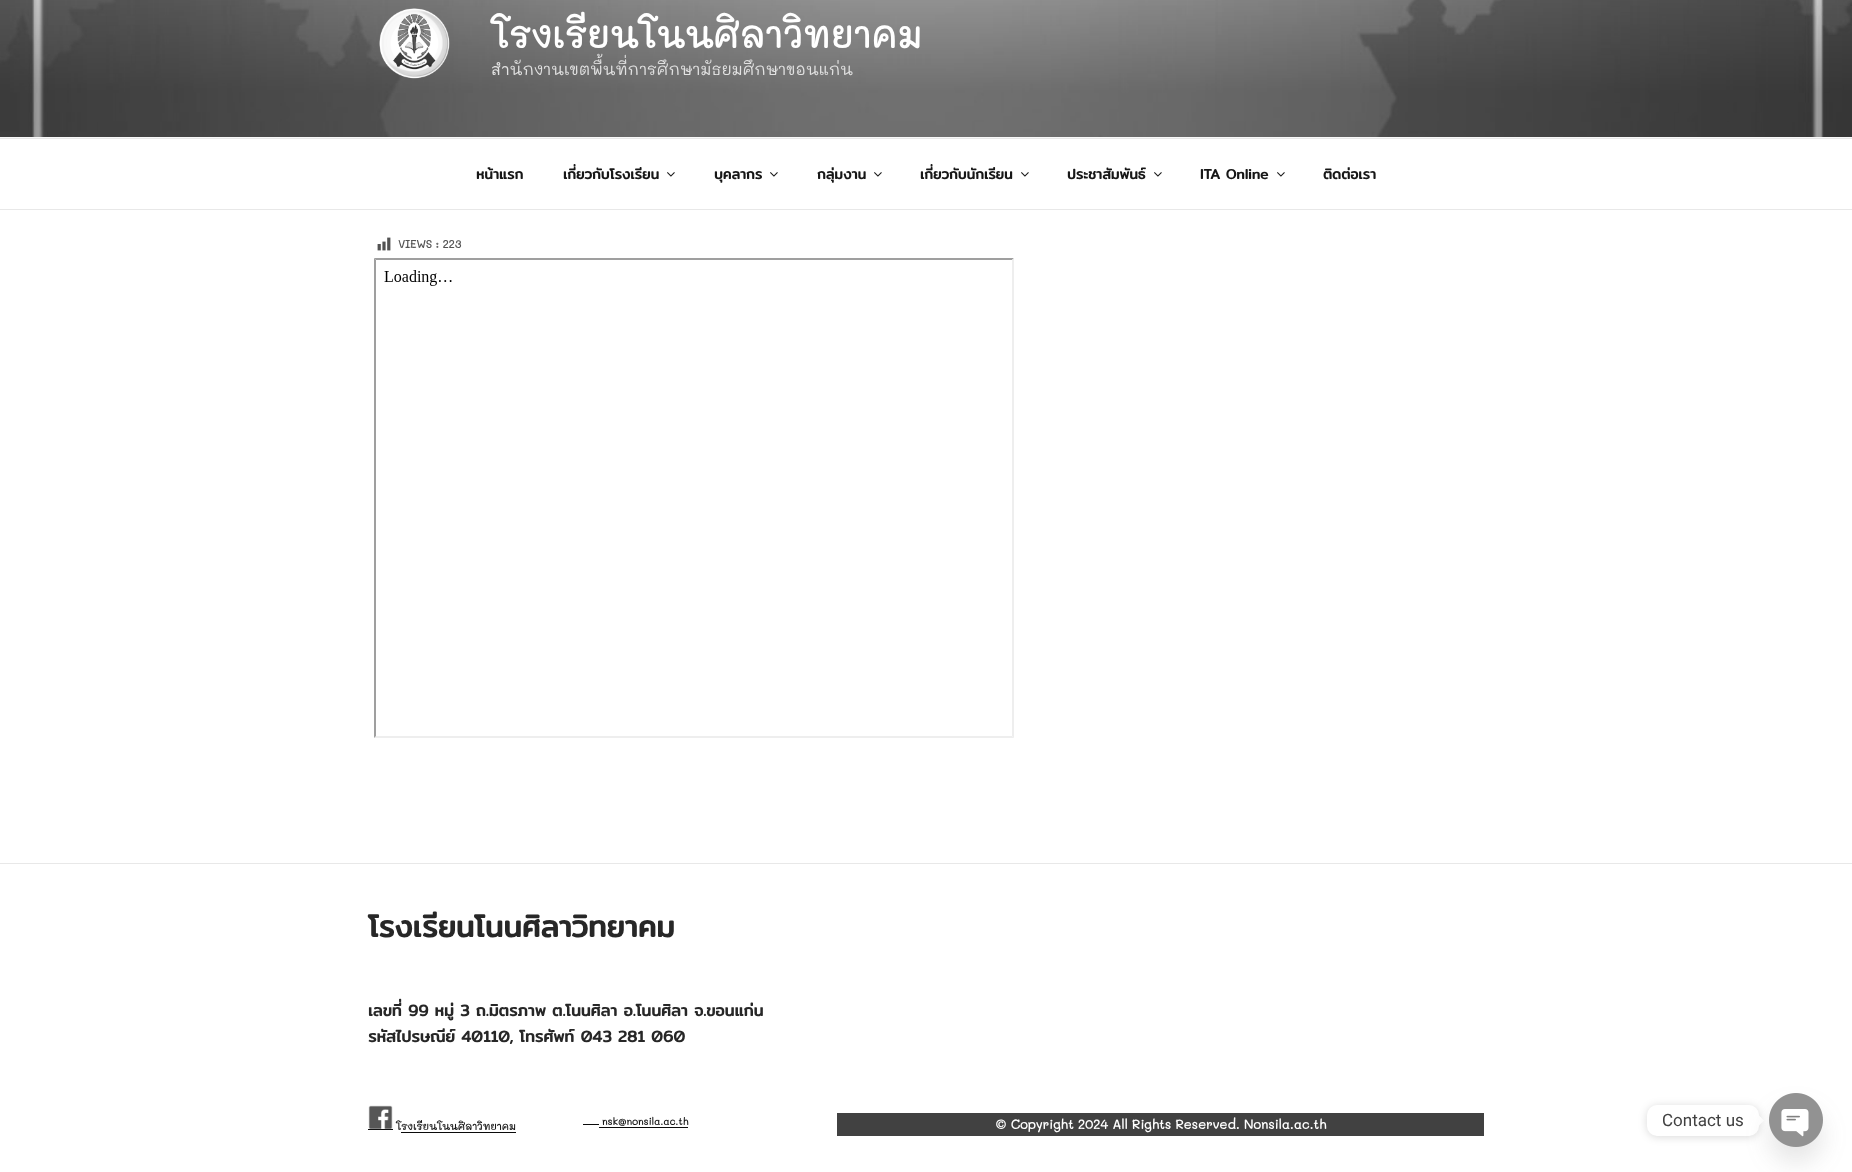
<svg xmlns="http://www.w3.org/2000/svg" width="1852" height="1172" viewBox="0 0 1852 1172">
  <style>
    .t1 { font: bold 36px Mali; fill: #fff; }
    .t2 { font: 16px Mali; fill: #e2e2e2; }
    .t3 { font: bold 14px Mitr; fill: #171717; }
    .t4 { font: bold 11px Mali; fill: #525252; }
    .t5 { font: bold 30px Mitr; fill: #272727; }
    .t6 { font: bold 16px Mitr; fill: #272727; }
    .t7 { font: bold 10px Mali; fill: #171717; }
    .t8 { font: bold 13px Mali; fill: #fff; }
    .t9 { font: 17px Roboto; fill: #414141; }
  </style>
  <rect width="100%" height="100%" fill="#fff"/>
  <rect x="0" y="137" width="1852" height="1" fill="#f8f8f8"/>
  <image x="0" y="0" width="1852" height="137" href="images/1.png"/>
  <image x="379" y="8" width="71" height="71" href="images/2.png"/>
  <text x="491" y="48" class="t1">โรงเรียนโนนศิลาวิทยาคม</text>
  <text x="491" y="75" class="t2">สำนักงานเขตพื้นที่การศึกษามัธยมศึกษาขอนแก่น</text>
  <rect x="0" y="138" width="1852" height="1" fill="#e8e8e8"/>
  <rect x="0" y="209" width="1852" height="1" fill="#e8e8e8"/>
  <text x="476" y="179" class="t3">หน้าแรก</text>
  <text x="563" y="179" class="t3">เกี่ยวกับโรงเรียน</text>
  <image x="667" y="172" width="8" height="5" href="images/3.png"/>
  <text x="714" y="179" class="t3">บุคลากร</text>
  <image x="770" y="172" width="8" height="5" href="images/3.png"/>
  <text x="817" y="179" class="t3">กลุ่มงาน</text>
  <image x="874" y="172" width="8" height="5" href="images/3.png"/>
  <text x="920" y="179" class="t3">เกี่ยวกับนักเรียน</text>
  <image x="1021" y="172" width="8" height="5" href="images/3.png"/>
  <text x="1067" y="179" class="t3">ประชาสัมพันธ์</text>
  <image x="1154" y="172" width="8" height="5" href="images/3.png"/>
  <text x="1200" y="179" class="t3">ITA Online</text>
  <image x="1277" y="172" width="8" height="5" href="images/3.png"/>
  <text x="1323" y="179" class="t3">ติดต่อเรา</text>
  <image x="377" y="237" width="14" height="14" href="images/4.png"/>
  <text x="398" y="248" class="t4">VIEWS : 223</text>
  <path d="M374 258H1014L1012 260H376Z" fill="#9f9f9f"/>
  <path d="M1014 258V738L1012 736V260Z" fill="#eee"/>
  <path d="M1014 738H374L376 736H1012Z" fill="#eee"/>
  <path d="M374 738V258L376 260V736Z" fill="#9f9f9f"/>
  <image x="384" y="270" width="68" height="16" href="images/5.png"/>
  <rect x="0" y="863" width="1852" height="1" fill="#e8e8e8"/>
  <text x="368" y="937" class="t5">โรงเรียนโนนศิลาวิทยาคม</text>
  <text x="368" y="1016" class="t6">เลขที่ 99 หมู่ 3 ถ.มิตรภาพ ต.โนนศิลา อ.โนนศิลา จ.ขอนแก่น</text>
  <text x="368" y="1042" class="t6">รหัสไปรษณีย์ 40110, โทรศัพท์ 043 281 060</text>
  <rect x="368" y="1129" width="25" height="1" fill="#0b0b0b"/>
  <rect x="393" y="1132" width="123" height="1" fill="#0b0b0b"/>
  <rect x="364" y="1101" width="33" height="33" fill="none" stroke="#fff" stroke-width="8"/>
  <image x="368" y="1105" width="25" height="25" href="images/6.png"/>
  <text x="396" y="1130" class="t7">โรงเรียนโนนศิลาวิทยาคม</text>
  <text x="602" y="1125" class="t7">nsk@nonsila.ac.th</text>
  <rect x="583" y="1124" width="16" height="1" fill="#0b0b0b"/>
  <rect x="599" y="1127" width="89" height="1" fill="#0b0b0b"/>
  <rect x="837" y="1113" width="647" height="23" fill="#414141"/>
  <text x="995" y="1129" class="t8">© Copyright 2024 All Rights Reserved. Nonsila.ac.th</text>
  <rect x="1647" y="1106" width="112" height="31" rx="10" fill="#00000026" filter="blur(4px)"/>
  <rect x="1647" y="1105" width="112" height="31" rx="10" fill="#fff"/>
  <text x="1662" y="1126" class="t9">Contact us</text>
  <path d="M1759 1125.5V1115.5L1764 1120.5Z" fill="#fff"/>
  <rect x="1769" y="1109" width="54" height="54" rx="27" fill="#63636329" filter="blur(12px)"/>
  <image x="1769" y="1093" width="54" height="54" href="images/7.png"/>
</svg>
